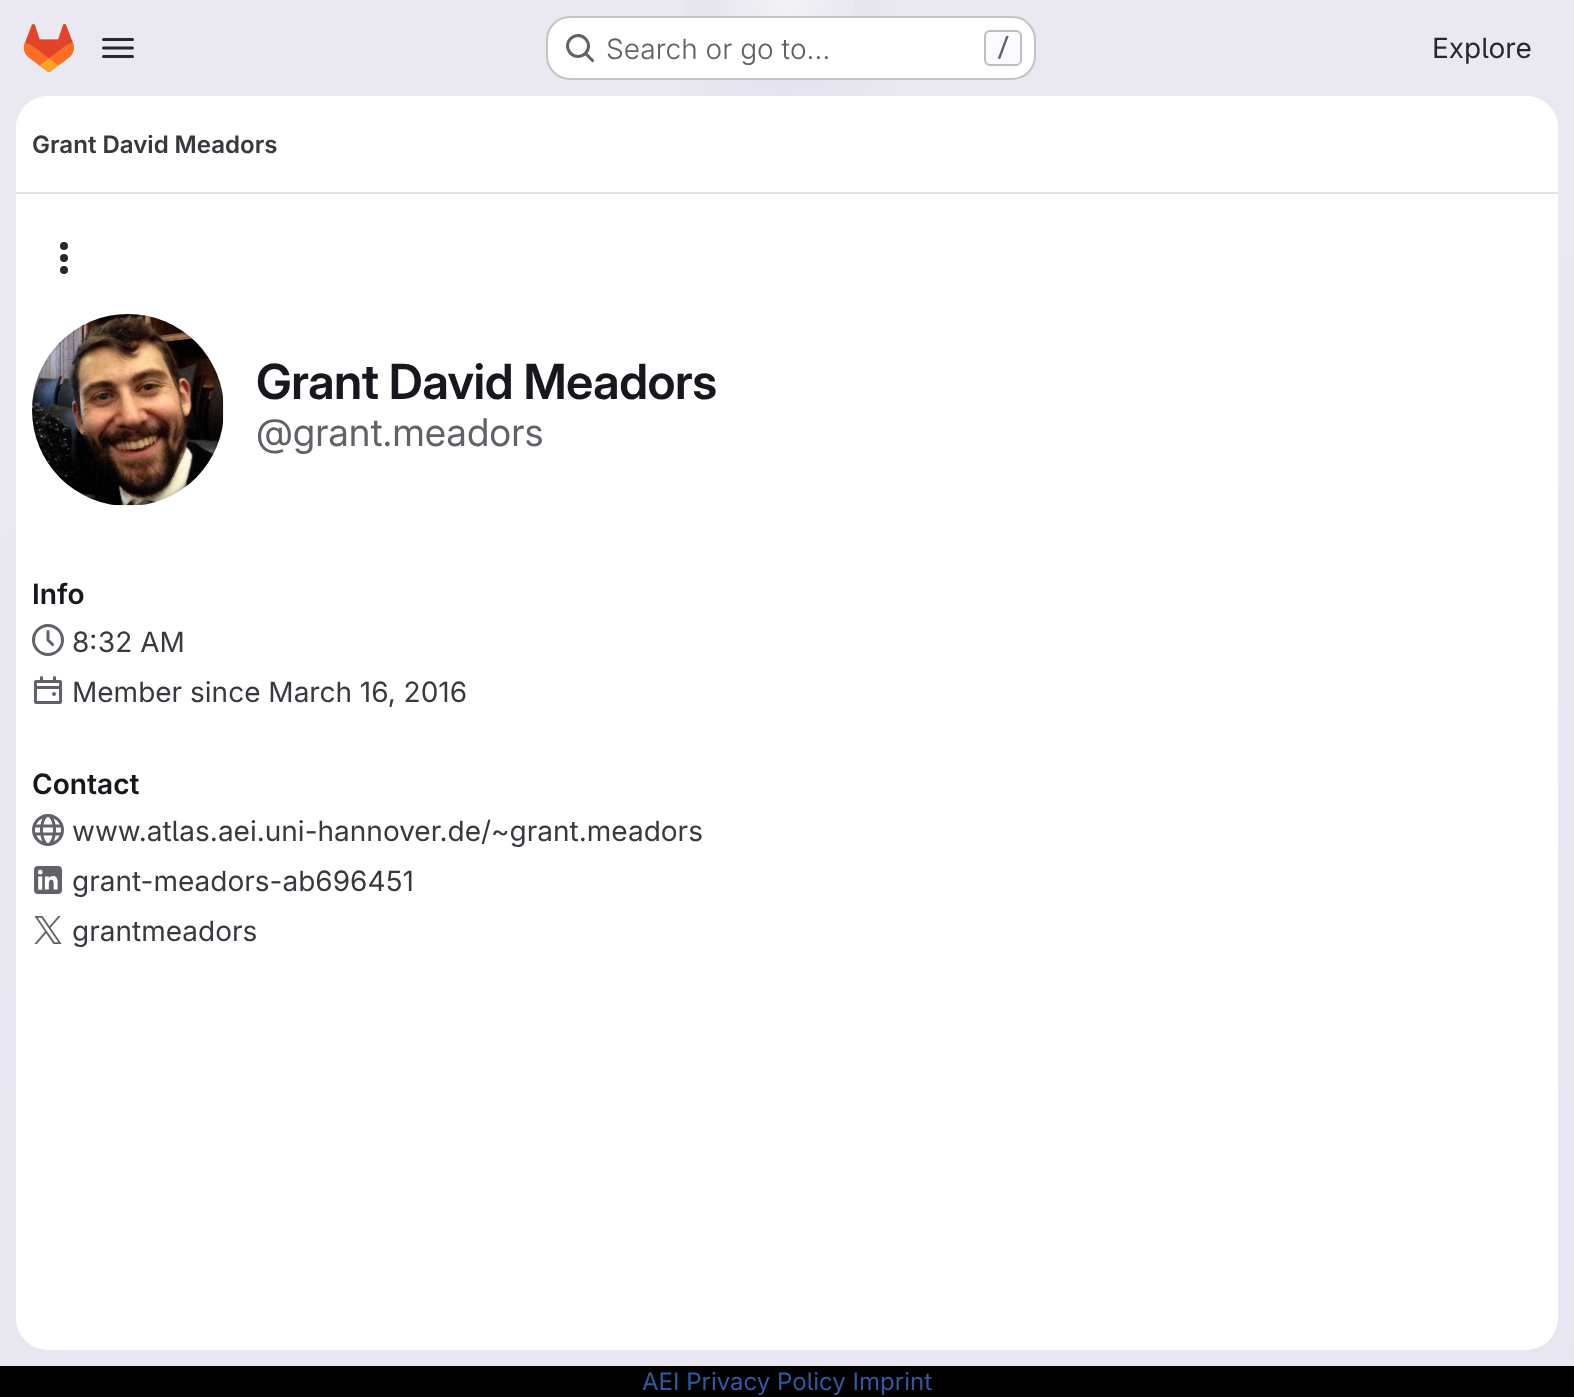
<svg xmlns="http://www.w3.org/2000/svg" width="1574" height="1397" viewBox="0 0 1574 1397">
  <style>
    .t1 { font: 300 28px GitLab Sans; fill: #626168; }
    .t2 { font: 500 24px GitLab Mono; fill: #626168; }
    .t3 { font: 28px GitLab Sans; fill: #28272d; }
    .t4 { font: 600 24px 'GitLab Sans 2'; fill: #3a383f; }
    .t5 { font: 600 48.5px GitLab Sans; letter-spacing: -0.5px; fill: #18171d; }
    .t6 { font: 38px 'GitLab Sans 2'; fill: #626168; }
    .t7 { font: 600 28px 'GitLab Sans 2'; fill: #18171d; }
    .t8 { font: 28px GitLab Sans; fill: #3a383f; }
    .t9 { font: 24px GitLab Sans; fill: #2f5ca0; }
  </style>
  <defs>
    <linearGradient id="g1" gradientUnits="userSpaceOnUse" x1="930" y1="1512" x2="644" y2="-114"><stop offset="0" stop-color="#e8e6f0"/><stop offset="0.7" stop-color="#eae9f2"/></linearGradient>
    <radialGradient id="g2" gradientUnits="userSpaceOnUse" cx="0" cy="0" r="1" gradientTransform="matrix(787 0 0 1398 787 0)"><stop offset="0" stop-color="#e4e2ed"/><stop offset="0.18" stop-color="#e4e2ed" stop-opacity="0"/></radialGradient>
    <radialGradient id="g3" gradientUnits="userSpaceOnUse" cx="0" cy="0" r="1" gradientTransform="matrix(787 0 0 1398 787 0)"><stop offset="0" stop-color="#e4e2ec"/><stop offset="0.13" stop-color="#e4e2ec" stop-opacity="0"/></radialGradient>
    <radialGradient id="g4" gradientUnits="userSpaceOnUse" cx="787" cy="0" r="1604"><stop offset="0" stop-color="#fff" stop-opacity="0.6"/><stop offset="0.05" stop-color="#fff" stop-opacity="0"/></radialGradient>
  </defs>
  <rect width="100%" height="100%" fill="#fff"/>
  <rect x="0" y="0" width="1574" height="1366" fill="url(#g1)"/>
  <rect x="685" y="0" width="205" height="96" fill="url(#g2)"/>
  <rect x="747" y="4" width="84" height="80" fill="url(#g3)"/>
  <rect x="720" y="0" width="134" height="16" fill="url(#g4)"/>
  <image x="24" y="24" width="50" height="48" href="images/1.png"/>
  <image x="102" y="38" width="32" height="20" href="images/2.png"/>
  <rect x="546" y="16" width="490" height="64" rx="24" fill="#fff"/>
  <rect x="547" y="17" width="488" height="62" rx="23" fill="none" stroke="#0505063d" stroke-width="2"/>
  <image x="566" y="34" width="29" height="29" href="images/3.png"/>
  <text x="606" y="59" class="t1">Search or go to…</text>
  <rect x="985" y="31" width="36" height="34" rx="5" fill="#fbfafd" stroke="#bfbfc3" stroke-width="2"/>
  <text x="996" y="56" class="t2">/</text>
  <text x="1432" y="58" class="t3">Explore</text>
  <rect x="16" y="96" width="1542" height="1254" rx="32" fill="#fff"/>
  <path d="M48 96H1526C1543.5 96 1558 110.5 1558 128V194H16V128C16 110.5 30.5 96 48 96Z" fill="#fff"/>
  <rect x="16" y="192" width="1542" height="2" fill="#e1dfec"/>
  <text x="32" y="153" class="t4">Grant David Meadors</text>
  <image x="60" y="242" width="8" height="32" href="images/4.png"/>
  <image x="32" y="314" width="191" height="191" href="images/5.png"/>
  <circle cx="128" cy="410" r="95" fill="none" stroke="#05050614" stroke-width="2"/>
  <text x="256" y="399" class="t5">Grant David Meadors</text>
  <text x="256" y="446" class="t6">@grant.meadors</text>
  <text x="32" y="604" class="t7">Info</text>
  <image x="32" y="624" width="32" height="32" href="images/6.png"/>
  <text x="72" y="652" class="t8">8:32 AM</text>
  <image x="34" y="676" width="28" height="28" href="images/7.png"/>
  <text x="72" y="702" class="t8">Member since March 16, 2016</text>
  <text x="32" y="794" class="t7">Contact</text>
  <image x="32" y="814" width="32" height="32" href="images/8.png"/>
  <text x="72" y="841" class="t8">www.atlas.aei.uni-hannover.de/~grant.meadors</text>
  <image x="34" y="866" width="28" height="28" href="images/9.png"/>
  <text x="72" y="891" class="t8">grant-meadors-ab696451</text>
  <image x="34" y="916" width="28" height="28" href="images/10.png"/>
  <text x="72" y="941" class="t8">grantmeadors</text>
  <rect x="0" y="1366" width="1574" height="31" fill="#000"/>
  <text x="642" y="1390" class="t9">AEI Privacy Policy Imprint</text>
</svg>
